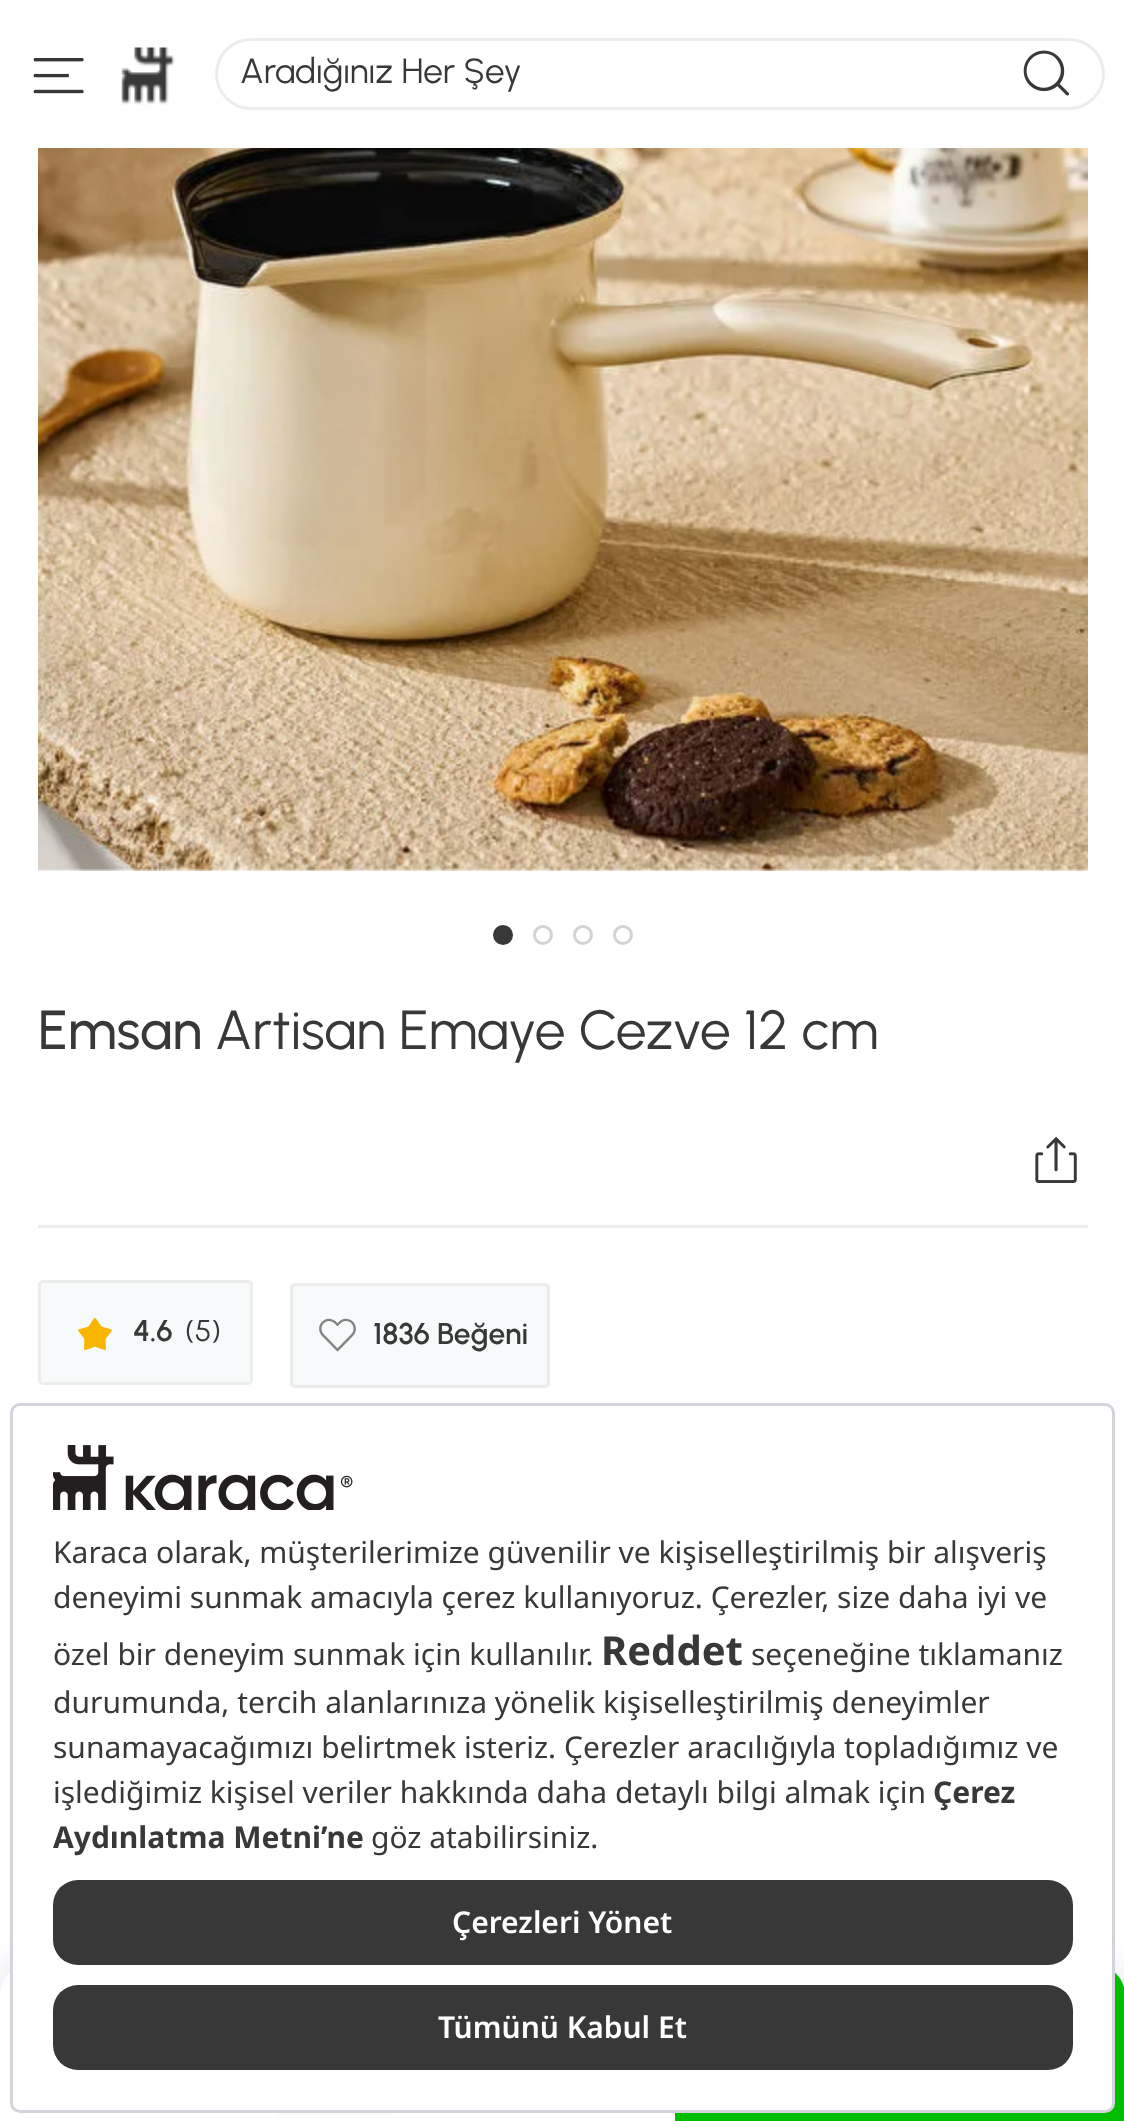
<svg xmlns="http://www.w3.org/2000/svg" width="1124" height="2121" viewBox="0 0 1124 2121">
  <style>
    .t1 { font: 35px Urbanist; fill: #383838; }
    .t2 { font: 500 55px Urbanist; fill: #383838; }
    .t3 { font: 55px Urbanist; fill: #383838; }
    .t4 { font: 600 30px Urbanist; fill: #383838; }
    .t5 { font: 30px Urbanist; fill: #383838; }
    .t6 { font: 30px Noto Sans; fill: #383838; }
    .t7 { font: bold 40px Noto Sans; fill: #383838; }
    .t8 { font: bold 30px Noto Sans; fill: #383838; }
    .t9 { font: 600 30px Noto Sans; fill: #fff; }
  </style>
  <rect width="100%" height="100%" fill="#fff"/>
  <image x="33" y="58" width="51" height="36" href="images/1.png"/>
  <image x="121" y="47" width="54" height="58" href="images/2.png"/>
  <rect x="216.5" y="39.5" width="887" height="69" rx="34.5" fill="none" stroke="#ececec" stroke-width="3"/>
  <text x="240" y="83" class="t1">Aradığınız Her Şey</text>
  <image x="1023" y="50" width="46" height="46" href="images/3.png"/>
  <image x="38" y="148" width="1050" height="723" href="images/4.png"/>
  <circle cx="503" cy="935" r="10" fill="#383838"/>
  <circle cx="543" cy="935" r="8.5" fill="none" stroke="#d3d3d3" stroke-width="3"/>
  <circle cx="583" cy="935" r="8.5" fill="none" stroke="#d3d3d3" stroke-width="3"/>
  <circle cx="623" cy="935" r="8.5" fill="none" stroke="#d3d3d3" stroke-width="3"/>
  <text x="38" y="1049" class="t2">Emsan</text>
  <text x="215" y="1049" class="t3">Artisan Emaye Cezve 12 cm</text>
  <image x="1035" y="1136" width="42" height="47" href="images/5.png"/>
  <rect x="38" y="1225" width="1050" height="3" fill="#ececec"/>
  <rect x="39.5" y="1281.5" width="212" height="102" rx="3.5" fill="#f7fafb" stroke="#ececec" stroke-width="3"/>
  <image x="78" y="1318" width="34" height="33" href="images/6.png"/>
  <text x="133" y="1341" class="t4">4.6</text>
  <text x="185" y="1341" class="t5">(5)</text>
  <rect x="291.5" y="1284.5" width="257" height="102" rx="3.5" fill="#f7fafb" stroke="#ececec" stroke-width="3"/>
  <image x="319" y="1318" width="37" height="34" href="images/7.png"/>
  <text x="373" y="1344" class="t4">1836 Beğeni</text>
  <rect x="0" y="1955" width="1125" height="158" rx="30" fill="#00000014" filter="blur(15px)"/>
  <path d="M30 1965H1095C1111.5 1965 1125 1978.5 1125 1995V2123H0V1995C0 1978.5 13.5 1965 30 1965Z" fill="#fff"/>
  <rect x="275" y="2010" width="120" height="105" rx="5" fill="#fef7f6"/>
  <path d="M675 1965H1095C1111.5 1965 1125 1978.5 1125 1995V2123H675Z" fill="#00bd00"/>
  <rect x="11.5" y="1404.5" width="1102" height="707" rx="8.5" fill="#fff" stroke="#d1d5db" stroke-width="3"/>
  <image x="53" y="1445" width="300" height="65" href="images/8.png"/>
  <text x="53" y="1563" class="t6">Karaca olarak, müşterilerimize güvenilir ve kişiselleştirilmiş bir alışveriş</text>
  <text x="53" y="1608" class="t6">deneyimi sunmak amacıyla çerez kullanıyoruz. Çerezler, size daha iyi ve</text>
  <text x="53" y="1665" class="t6">özel bir deneyim sunmak için kullanılır.</text>
  <text x="601" y="1665" class="t7">Reddet</text>
  <text x="751" y="1665" class="t6">seçeneğine tıklamanız</text>
  <text x="53" y="1713" class="t6">durumunda, tercih alanlarınıza yönelik kişiselleştirilmiş deneyimler</text>
  <text x="53" y="1758" class="t6">sunamayacağımızı belirtmek isteriz. Çerezler aracılığıyla topladığımız ve</text>
  <text x="53" y="1803" class="t6">işlediğimiz kişisel veriler hakkında daha detaylı bilgi almak için</text>
  <text x="933" y="1803" class="t8">Çerez</text>
  <text x="53" y="1848" class="t8">Aydınlatma Metni’ne</text>
  <text x="371" y="1848" class="t6">göz atabilirsiniz.</text>
  <rect x="53" y="1880" width="1020" height="85" rx="25" fill="#383838"/>
  <text x="452" y="1933" class="t9">Çerezleri Yönet</text>
  <rect x="53" y="1985" width="1020" height="85" rx="25" fill="#383838"/>
  <text x="438" y="2038" class="t9">Tümünü Kabul Et</text>
</svg>
